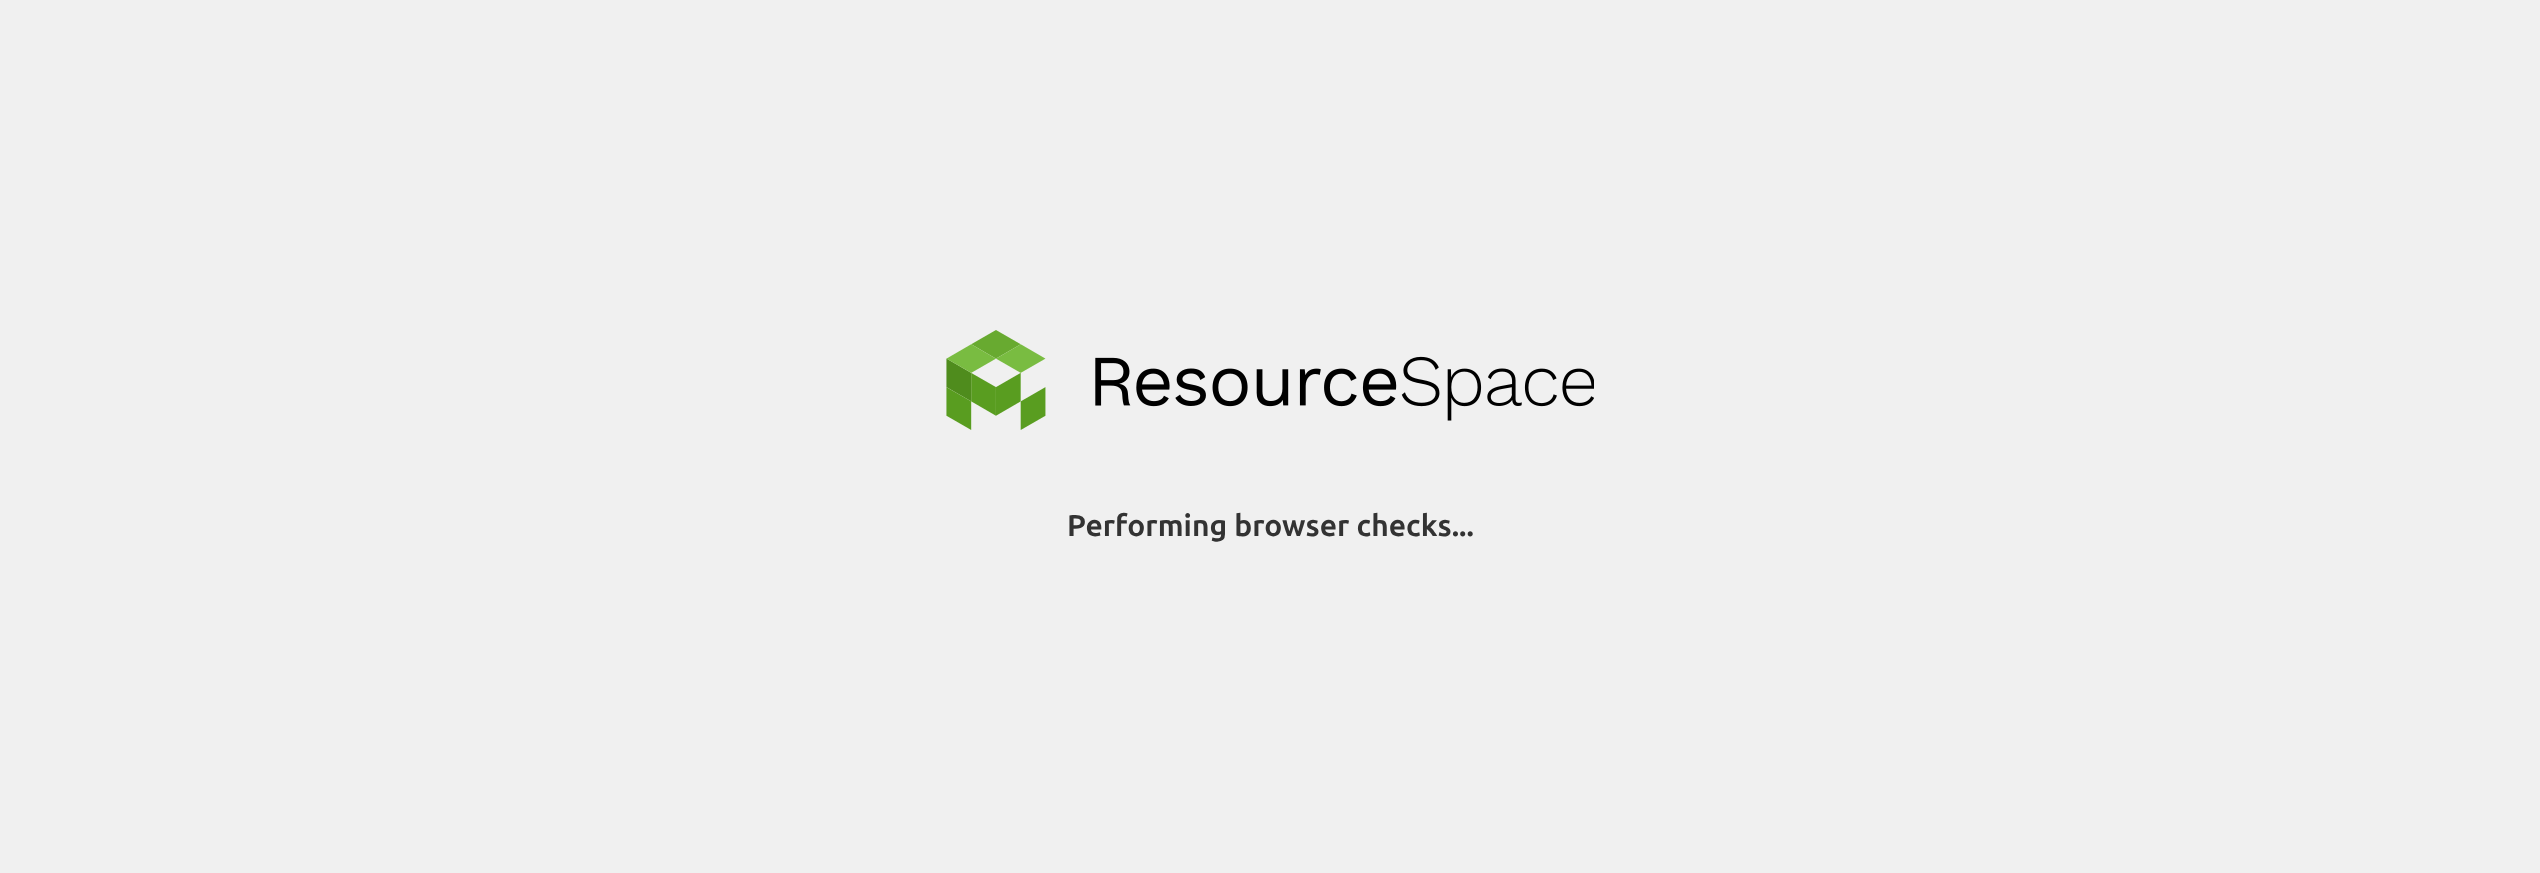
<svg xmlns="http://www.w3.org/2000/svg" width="2540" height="873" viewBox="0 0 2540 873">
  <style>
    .t1 { font: bold 30px Ubuntu; fill: #333; }
  </style>
  <rect width="100%" height="100%" fill="#f0f0f0"/>
  <image x="946" y="330" width="648" height="100" href="images/1.png"/>
  <text x="1067" y="536" class="t1">Performing browser checks...</text>
</svg>
